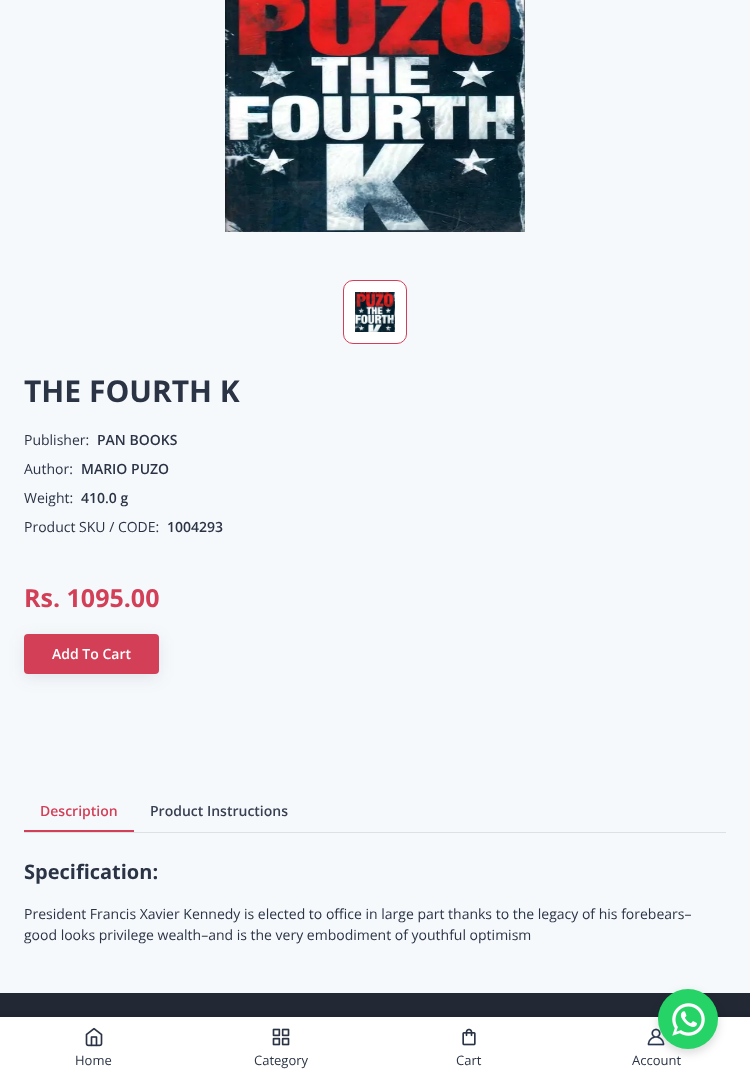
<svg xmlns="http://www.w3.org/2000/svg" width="750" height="1081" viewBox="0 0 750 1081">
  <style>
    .t1 { font: bold 30px Open Sans; fill: #2b3445; }
    .t2 { font: 14px Open Sans; fill: #2b3445; }
    .t3 { font: 600 14px Open Sans; fill: #2b3445; }
    .t4 { font: bold 25px Open Sans; fill: #d23f57; }
    .t5 { font: 600 14px Open Sans; fill: #fff; }
    .t6 { font: 600 14px Open Sans; fill: #d23f57; }
    .t7 { font: 600 14px Open Sans; fill: #373f50; }
    .t8 { font: bold 20px Open Sans; fill: #2b3445; }
    .t9 { font: 13px Open Sans; fill: #2b3445; }
  </style>
  <rect width="100%" height="100%" fill="#f6f9fc"/>
  <image x="225" y="0" width="300" height="232" href="images/1.png"/>
  <rect x="343.5" y="280.5" width="63" height="63" rx="9.5" fill="#fff" stroke="#d23f57"/>
  <image x="355" y="292" width="40" height="40" href="images/2.png"/>
  <text x="24" y="402" class="t1">THE FOURTH K</text>
  <text x="24" y="445" class="t2">Publisher:</text>
  <text x="97" y="445" class="t3">PAN BOOKS</text>
  <text x="24" y="474" class="t2">Author:</text>
  <text x="81" y="474" class="t3">MARIO PUZO</text>
  <text x="24" y="503" class="t2">Weight:</text>
  <text x="81" y="503" class="t3">410.0 g</text>
  <text x="24" y="532" class="t2">Product SKU / CODE:</text>
  <text x="167" y="532" class="t3">1004293</text>
  <text x="24" y="607" class="t4">Rs. 1095.00</text>
  <rect x="24" y="638" width="135" height="40" rx="4" fill="#2b34451a" filter="blur(8px)"/>
  <rect x="24" y="634" width="135" height="40" rx="4" fill="#d23f57"/>
  <text x="52" y="659" class="t5">Add To Cart</text>
  <rect x="24" y="832" width="702" height="1" fill="#dae1e7"/>
  <text x="40" y="816" class="t6">Description</text>
  <text x="150" y="816" class="t7">Product Instructions</text>
  <rect x="24" y="830" width="110" height="2" fill="#d23f57"/>
  <text x="24" y="879" class="t8">Specification:</text>
  <text x="24" y="919" class="t2">President Francis Xavier Kennedy is elected to office in large part thanks to the legacy of his forebears–</text>
  <text x="24" y="940" class="t2">good looks privilege wealth–and is the very embodiment of youthful optimism</text>
  <rect x="0" y="993" width="750" height="24" fill="#222935"/>
  <rect x="-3" y="1015" width="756" height="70" fill="#0000001a" filter="blur(2px)"/>
  <rect x="0" y="1017" width="750" height="64" fill="#fff"/>
  <image x="647" y="1028" width="18" height="18" href="images/7.png"/>
  <rect x="658" y="993" width="60" height="60" rx="30" fill="#00000026" filter="blur(5px)"/>
  <circle cx="688" cy="1019" r="30" fill="#25d366"/>
  <image x="672" y="1003" width="33" height="33" href="images/3.png"/>
  <image x="85" y="1027" width="18" height="20" href="images/4.png"/>
  <text x="75" y="1065" class="t9">Home</text>
  <image x="272" y="1028" width="18" height="18" href="images/5.png"/>
  <text x="254" y="1065" class="t9">Category</text>
  <image x="462" y="1028" width="14" height="18" href="images/6.png"/>
  <text x="456" y="1065" class="t9">Cart</text>
  <text x="632" y="1065" class="t9">Account</text>
</svg>
